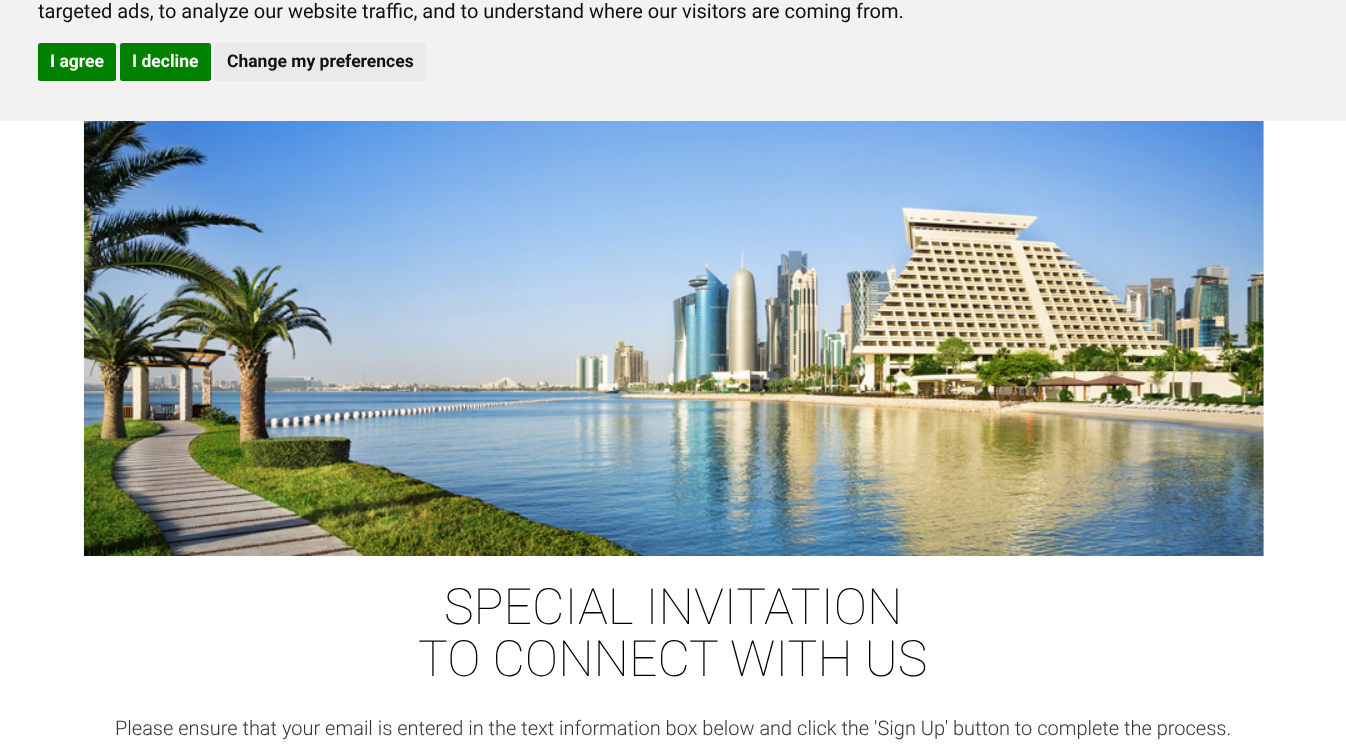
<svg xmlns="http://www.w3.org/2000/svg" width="1346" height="755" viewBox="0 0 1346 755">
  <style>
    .t1 { font: 20px Roboto; fill: #111; }
    .t2 { font: bold 17.5px Roboto; fill: #fff; }
    .t3 { font: bold 17.5px Roboto; fill: #111; }
    .t4 { font: 100 50px Roboto; fill: #000; }
    .t5 { font: 300 20px Roboto; fill: #333; }
  </style>
  <rect width="100%" height="100%" fill="#fff"/>
  <rect x="0" y="0" width="1346" height="121" fill="#f2f2f2"/>
  <text x="38" y="18" class="t1">targeted ads, to analyze our website traffic, and to understand where our visitors are coming from.</text>
  <rect x="38" y="43" width="78" height="38" rx="2.5" fill="#008000"/>
  <text x="50" y="67" class="t2">I agree</text>
  <rect x="120" y="43" width="91" height="38" rx="2.5" fill="#008000"/>
  <text x="132" y="67" class="t2">I decline</text>
  <rect x="214" y="43" width="212" height="38" rx="2.5" fill="#eaeaea"/>
  <text x="227" y="67" class="t3">Change my preferences</text>
  <image x="83" y="121" width="1181" height="435" href="images/1.png"/>
  <text x="444" y="624" class="t4">SPECIAL INVITATION</text>
  <text x="418" y="676" class="t4">TO CONNECT WITH US</text>
  <text x="115" y="735" class="t5">Please ensure that your email is entered in the text information box below and click the 'Sign Up' button to complete the process.</text>
</svg>
